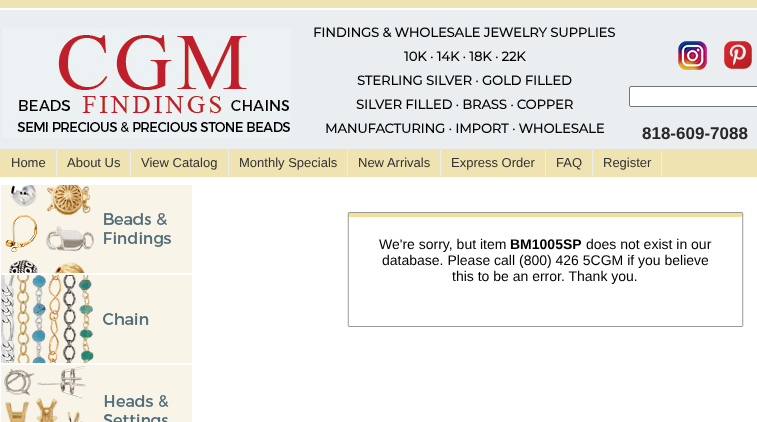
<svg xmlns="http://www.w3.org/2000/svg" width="757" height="422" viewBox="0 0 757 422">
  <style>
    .t1 { font: bold 13px Montserrat; fill: #000; }
    .t2 { font: bold 17px Liberation Sans; fill: #282828; }
    .t3 { font: 13px Liberation Sans; fill: #323232; }
    .t4 { font: 14px Liberation Sans; fill: #000; }
    .t5 { font: bold 14px Liberation Sans; fill: #000; }
  </style>
  <rect width="100%" height="100%" fill="#fff"/>
  <rect x="0" y="0" width="757" height="8" fill="#eee3b1"/>
  <rect x="0" y="10" width="757" height="139" fill="#eaeef0"/>
  <image x="3" y="28" width="288" height="110" href="images/1.png"/>
  <text x="313" y="37" class="t1">FINDINGS &amp; WHOLESALE JEWELRY SUPPLIES</text>
  <text x="404" y="61" class="t1">10K · 14K · 18K · 22K</text>
  <text x="357" y="85" class="t1">STERLING SILVER · GOLD FILLED</text>
  <text x="356" y="109" class="t1">SILVER FILLED · BRASS · COPPER</text>
  <text x="325" y="133" class="t1">MANUFACTURING · IMPORT · WHOLESALE</text>
  <image x="678" y="41" width="29" height="29" href="images/2.png"/>
  <image x="724" y="41" width="28" height="28" href="images/3.png"/>
  <rect x="629.5" y="86.5" width="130" height="20" rx="1.5" fill="#fff" stroke="#767676"/>
  <text x="642" y="139" class="t2">818-609-7088</text>
  <rect x="0" y="149" width="757" height="28" fill="#eee3b1"/>
  <rect x="56" y="150" width="1" height="26" fill="#eaeef0"/>
  <text x="11" y="167" class="t3">Home</text>
  <rect x="130" y="150" width="1" height="26" fill="#eaeef0"/>
  <text x="67" y="167" class="t3">About Us</text>
  <rect x="228" y="150" width="1" height="26" fill="#eaeef0"/>
  <text x="141" y="167" class="t3">View Catalog</text>
  <rect x="347" y="150" width="1" height="26" fill="#eaeef0"/>
  <text x="239" y="167" class="t3">Monthly Specials</text>
  <rect x="440" y="150" width="1" height="26" fill="#eaeef0"/>
  <text x="358" y="167" class="t3">New Arrivals</text>
  <rect x="545" y="150" width="1" height="26" fill="#eaeef0"/>
  <text x="451" y="167" class="t3">Express Order</text>
  <rect x="592" y="150" width="1" height="26" fill="#eaeef0"/>
  <text x="556" y="167" class="t3">FAQ</text>
  <rect x="661" y="150" width="1" height="26" fill="#eaeef0"/>
  <text x="603" y="167" class="t3">Register</text>
  <image x="1" y="185" width="191" height="88" href="images/4.png"/>
  <image x="1" y="275" width="191" height="88" href="images/5.png"/>
  <image x="1" y="365" width="191" height="57" href="images/6.png"/>
  <image x="345" y="206" width="400" height="30" href="images/7.png"/>
  <image x="347" y="236" width="397" height="88" href="images/8.png"/>
  <image x="347" y="324" width="397" height="10" href="images/9.png"/>
  <text x="379" y="249" class="t4">We're sorry, but item</text>
  <text x="510" y="249" class="t5">BM1005SP</text>
  <text x="586" y="249" class="t4">does not exist in our</text>
  <text x="382" y="265" class="t4">database. Please call (800) 426 5CGM if you believe</text>
  <text x="452" y="281" class="t4">this to be an error. Thank you.</text>
</svg>
